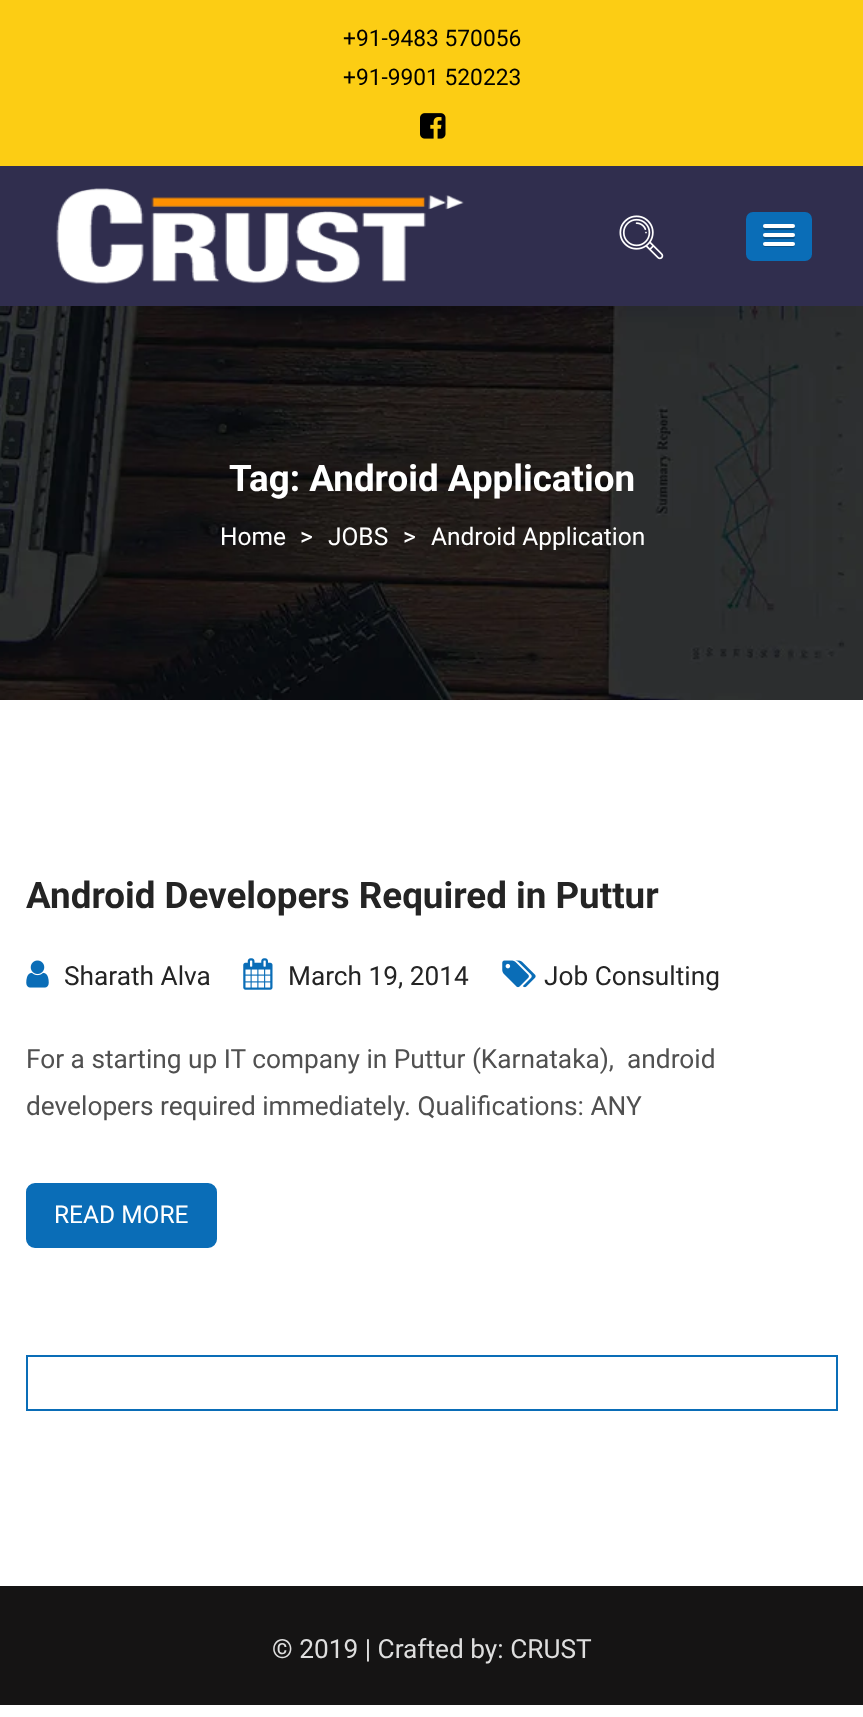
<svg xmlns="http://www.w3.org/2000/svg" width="863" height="1717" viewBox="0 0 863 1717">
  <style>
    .t1 { font: 22.75px Roboto; fill: #000; }
    .t2 { font: bold 36.75px Roboto; fill: #fff; }
    .t3 { font: 24.5px Roboto; fill: #fff; }
    .t4 { font: bold 36.75px Roboto; fill: #242424; }
    .t5 { font: 26.25px Roboto; fill: #242424; }
    .t6 { font: 26.25px Roboto; fill: #505050; }
    .t7 { font: 26.25px Roboto; fill: #dedede; }
  </style>
  <rect width="100%" height="100%" fill="#fff"/>
  <rect x="0" y="0" width="863" height="166" fill="#fccd14"/>
  <text x="343" y="46" class="t1">+91-9483 570056</text>
  <text x="343" y="85" class="t1">+91-9901 520223</text>
  <image x="420" y="113" width="26" height="26" href="images/1.png"/>
  <rect x="0" y="166" width="863" height="140" fill="#302e4e"/>
  <image x="56" y="188" width="408" height="96" href="images/2.png"/>
  <image x="619" y="215" width="45" height="45" href="images/3.png"/>
  <rect x="746" y="212" width="66" height="49" rx="7" fill="#0a6db7"/>
  <path d="M763.5 227L763 228.5C763.5 231 768.5 230 769.5 230H788.5C790 230 795 231 795 228L794.5 226.5C794 227 793.5 227.5 793 227.5H764.5Z" fill="#085289"/>
  <rect x="763" y="224" width="32" height="4" rx="2" fill="#fff"/>
  <path d="M763.5 235.5C763 236 763 237 763 237.5C763.5 240 768.5 239 769.5 239H793C795 239 795.5 236.5 794 235.5L793 236H764.5Z" fill="#085289"/>
  <rect x="763" y="233" width="32" height="4" rx="2" fill="#fff"/>
  <path d="M763 244C761.5 248 769 247 769.5 247H788.5C789.5 247 794.5 248 795 245.5C795 245 795 244 794.5 243.5C794.5 244.5 793.5 245 793 245H765C764 245 763.5 244.5 763 244Z" fill="#085289"/>
  <rect x="763" y="242" width="32" height="4" rx="2" fill="#fff"/>
  <image x="0" y="306" width="863" height="394" href="images/4.png"/>
  <text x="229" y="491" class="t2">Tag: Android Application</text>
  <text x="220" y="545" class="t3">Home</text>
  <text x="300" y="545" class="t3">&gt;</text>
  <text x="328" y="545" class="t3">JOBS</text>
  <text x="403" y="545" class="t3">&gt;</text>
  <text x="431" y="545" class="t3">Android Application</text>
  <text x="26" y="908" class="t4">Android Developers Required in Puttur</text>
  <image x="26" y="960" width="23" height="28" href="images/5.png"/>
  <text x="64" y="985" class="t5">Sharath Alva</text>
  <image x="243" y="958" width="30" height="32" href="images/6.png"/>
  <text x="288" y="985" class="t5">March 19, 2014</text>
  <image x="502" y="960" width="34" height="28" href="images/7.png"/>
  <text x="544" y="985" class="t5">Job Consulting</text>
  <text x="26" y="1068" class="t6" xml:space="preserve">For a starting up IT company in Puttur (Karnataka),  android</text>
  <text x="26" y="1115" class="t6">developers required immediately. Qualifications: ANY</text>
  <rect x="27" y="1184" width="189" height="63" rx="8" fill="#0a6db7" stroke="#0a6db7" stroke-width="2"/>
  <text x="54" y="1223" class="t3">READ MORE</text>
  <rect x="27" y="1356" width="810" height="54" fill="none" stroke="#0a6db7" stroke-width="2"/>
  <rect x="0" y="1586" width="863" height="119" fill="#151414"/>
  <text x="272" y="1658" class="t7">© 2019 | Crafted by: CRUST</text>
</svg>
